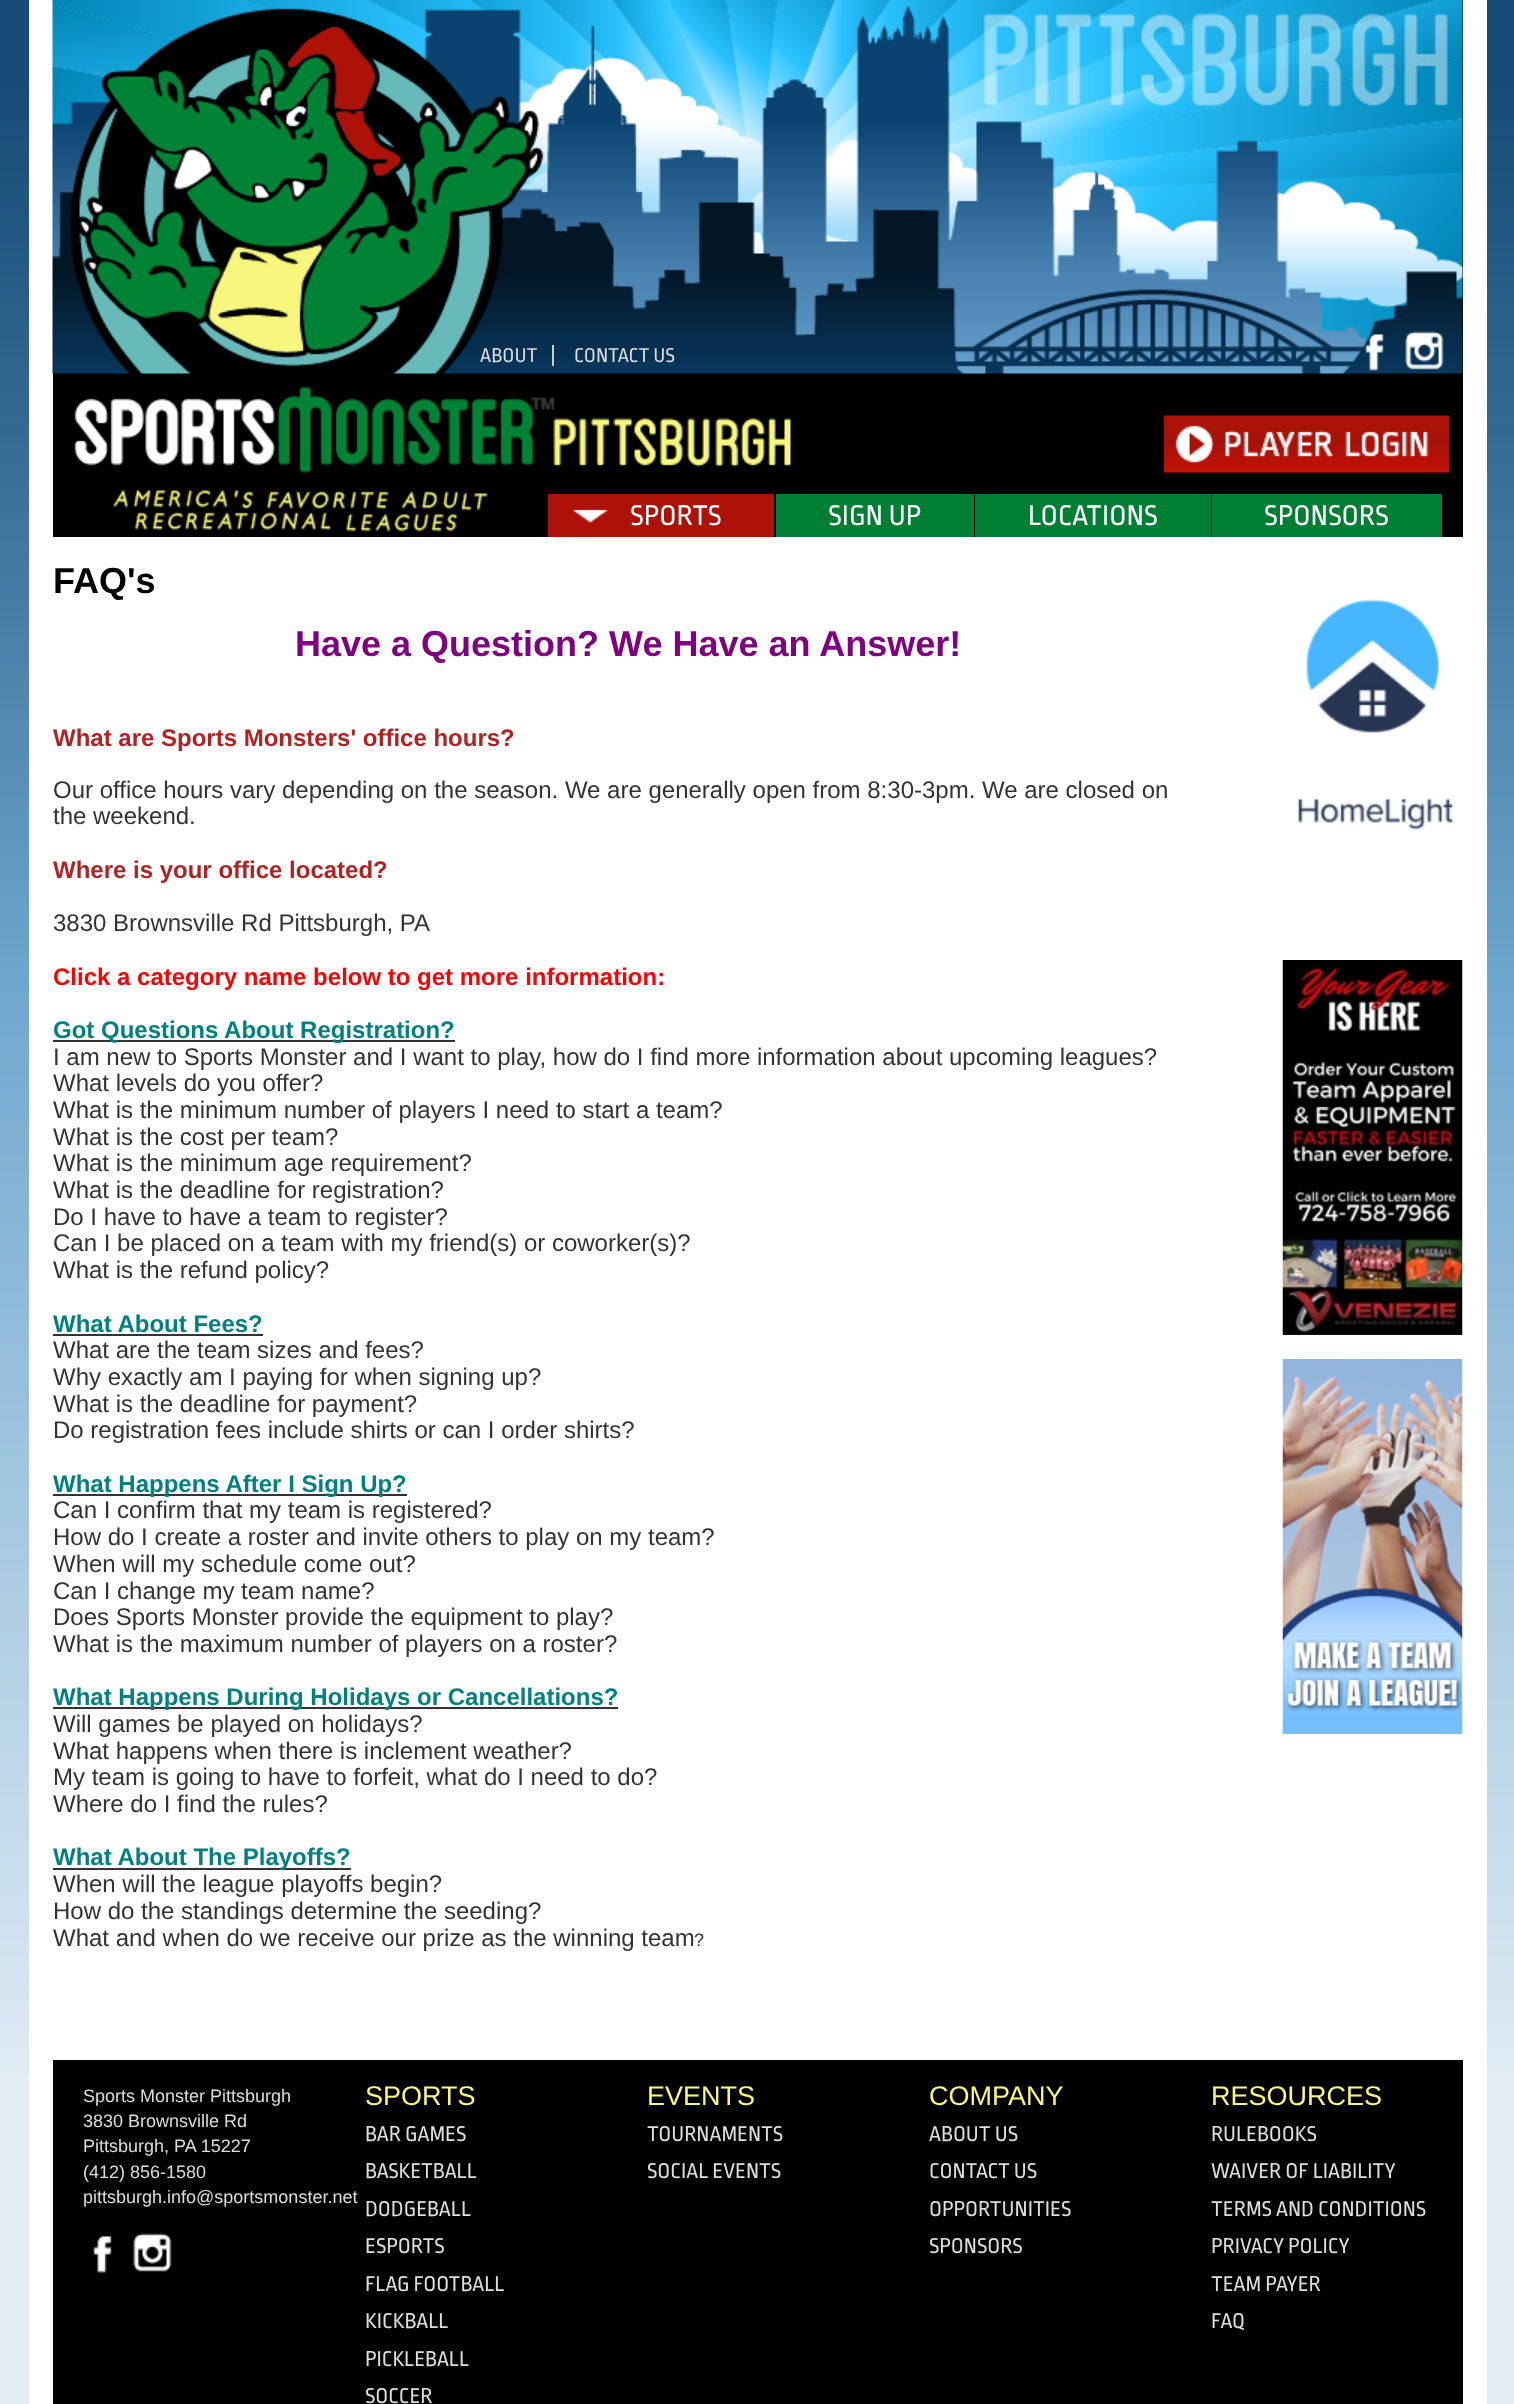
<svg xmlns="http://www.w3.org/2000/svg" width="1514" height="2404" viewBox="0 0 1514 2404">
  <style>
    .t1 { font: 21px Ropa Sans; fill: #ddd; }
    .t2 { font: 30px Ropa Sans; fill: #fff; }
    .t3 { font: bold 36px Liberation Sans; fill: #000; }
    .t4 { font: bold 36px Liberation Sans; fill: #800080; }
    .t5 { font: bold 24px Liberation Sans; fill: #b22222; }
    .t6 { font: 24px Liberation Sans; fill: #333; }
    .t7 { font: bold 24px Liberation Sans; fill: #f00; }
    .t8 { font: bold 24px Liberation Sans; fill: #008080; }
    .t9 { font: 18px Liberation Sans; fill: #333; }
    .t10 { font: 18px Liberation Sans; fill: #ddd; }
    .t11 { font: 27px Liberation Sans; fill: #f7f77e; }
    .t12 { font: 22.5px Ropa Sans; fill: #ddd; }
  </style>
  <rect width="100%" height="100%" fill="#e2edf5"/>
  <image x="0" y="0" width="1514" height="2074" href="images/1.png"/>
  <rect x="29" y="0" width="1458" height="2404" fill="#fff"/>
  <rect x="53" y="0" width="1410" height="537" fill="#000"/>
  <image x="52" y="0" width="1411" height="374" href="images/2.png"/>
  <rect x="552" y="345" width="2" height="21" fill="#ccc"/>
  <text x="480" y="362" class="t1">ABOUT</text>
  <text x="574" y="362" class="t1">CONTACT US</text>
  <image x="1364" y="334" width="20" height="37" href="images/3.png"/>
  <image x="1405" y="331" width="39" height="39" href="images/4.png"/>
  <image x="74" y="386" width="717" height="87" href="images/5.png"/>
  <image x="1164" y="415" width="285" height="58" href="images/6.png"/>
  <image x="112" y="490" width="376" height="42" href="images/7.png"/>
  <rect x="548" y="494" width="226" height="43" fill="#ac1208"/>
  <image x="573" y="509" width="35" height="14" href="images/8.png"/>
  <text x="630" y="525" class="t2">SPORTS</text>
  <rect x="776" y="494" width="198" height="43" fill="#007e33"/>
  <text x="828" y="525" class="t2">SIGN UP</text>
  <rect x="975" y="494" width="236" height="43" fill="#007e33"/>
  <text x="1028" y="525" class="t2">LOCATIONS</text>
  <rect x="1212" y="494" width="230" height="43" fill="#007e33"/>
  <text x="1264" y="525" class="t2">SPONSORS</text>
  <text x="53" y="593" class="t3">FAQ's</text>
  <text x="295" y="656" class="t4">Have a Question? We Have an Answer!</text>
  <text x="53" y="746" class="t5">What are Sports Monsters' office hours?</text>
  <text x="53" y="798" class="t6">Our office hours vary depending on the season. We are generally open from 8:30-3pm. We are closed on</text>
  <text x="53" y="824" class="t6">the weekend.</text>
  <text x="53" y="878" class="t5">Where is your office located?</text>
  <text x="53" y="931" class="t6">3830 Brownsville Rd Pittsburgh, PA</text>
  <text x="53" y="985" class="t7">Click a category name below to get more information:</text>
  <rect x="53" y="1040" width="402" height="2" fill="#333"/>
  <text x="53" y="1038" class="t8">Got Questions About Registration?</text>
  <text x="53" y="1065" class="t6">I am new to Sports Monster and I want to play, how do I find more information about upcoming leagues?</text>
  <text x="53" y="1091" class="t6">What levels do you offer?</text>
  <text x="53" y="1118" class="t6">What is the minimum number of players I need to start a team?</text>
  <text x="53" y="1145" class="t6">What is the cost per team?</text>
  <text x="53" y="1171" class="t6">What is the minimum age requirement?</text>
  <text x="53" y="1198" class="t6">What is the deadline for registration?</text>
  <text x="53" y="1225" class="t6">Do I have to have a team to register?</text>
  <text x="53" y="1251" class="t6">Can I be placed on a team with my friend(s) or coworker(s)?</text>
  <text x="53" y="1278" class="t6">What is the refund policy?</text>
  <text x="53" y="1332" class="t8">What About Fees?</text>
  <rect x="53" y="1334" width="210" height="2" fill="#333"/>
  <text x="53" y="1358" class="t6">What are the team sizes and fees?</text>
  <text x="53" y="1385" class="t6">Why exactly am I paying for when signing up?</text>
  <text x="53" y="1412" class="t6">What is the deadline for payment?</text>
  <text x="53" y="1438" class="t6">Do registration fees include shirts or can I order shirts?</text>
  <rect x="53" y="1494" width="354" height="2" fill="#333"/>
  <text x="53" y="1492" class="t8">What Happens After I Sign Up?</text>
  <text x="53" y="1518" class="t6">Can I confirm that my team is registered?</text>
  <text x="53" y="1545" class="t6">How do I create a roster and invite others to play on my team?</text>
  <text x="53" y="1572" class="t6">When will my schedule come out?</text>
  <text x="53" y="1599" class="t6">Can I change my team name?</text>
  <text x="53" y="1625" class="t6">Does Sports Monster provide the equipment to play?</text>
  <text x="53" y="1652" class="t6">What is the maximum number of players on a roster?</text>
  <rect x="53" y="1707" width="565" height="2" fill="#333"/>
  <text x="53" y="1705" class="t8">What Happens During Holidays or Cancellations?</text>
  <text x="53" y="1732" class="t6">Will games be played on holidays?</text>
  <text x="53" y="1759" class="t6">What happens when there is inclement weather?</text>
  <text x="53" y="1785" class="t6">My team is going to have to forfeit, what do I need to do?</text>
  <text x="53" y="1812" class="t6">Where do I find the rules?</text>
  <rect x="53" y="1868" width="298" height="2" fill="#333"/>
  <text x="53" y="1865" class="t8">What About The Playoffs?</text>
  <text x="53" y="1892" class="t6">When will the league playoffs begin?</text>
  <text x="53" y="1919" class="t6">How do the standings determine the seeding?</text>
  <text x="53" y="1946" class="t6">What and when do we receive our prize as the winning team</text>
  <text x="694" y="1946" class="t9">?</text>
  <image x="1297" y="599" width="157" height="231" href="images/9.png"/>
  <image x="1282" y="960" width="181" height="375" href="images/10.png"/>
  <image x="1282" y="1359" width="181" height="375" href="images/11.png"/>
  <rect x="53" y="2060" width="1410" height="344" fill="#000"/>
  <text x="83" y="2102" class="t10">Sports Monster Pittsburgh</text>
  <text x="83" y="2127" class="t10">3830 Brownsville Rd</text>
  <text x="83" y="2152" class="t10">Pittsburgh, PA 15227</text>
  <text x="83" y="2178" class="t10">(412) 856-1580</text>
  <text x="83" y="2203" class="t10">pittsburgh.info@sportsmonster.net</text>
  <image x="92" y="2236" width="20" height="37" href="images/12.png"/>
  <image x="133" y="2233" width="39" height="39" href="images/13.png"/>
  <text x="365" y="2105" class="t11">SPORTS</text>
  <text x="365" y="2141" class="t12">BAR GAMES</text>
  <text x="365" y="2178" class="t12">BASKETBALL</text>
  <text x="365" y="2216" class="t12">DODGEBALL</text>
  <text x="365" y="2253" class="t12">ESPORTS</text>
  <text x="365" y="2291" class="t12">FLAG FOOTBALL</text>
  <text x="365" y="2328" class="t12">KICKBALL</text>
  <text x="365" y="2366" class="t12">PICKLEBALL</text>
  <text x="365" y="2403" class="t12">SOCCER</text>
  <text x="647" y="2105" class="t11">EVENTS</text>
  <text x="647" y="2141" class="t12">TOURNAMENTS</text>
  <text x="647" y="2178" class="t12">SOCIAL EVENTS</text>
  <text x="929" y="2105" class="t11">COMPANY</text>
  <text x="929" y="2141" class="t12">ABOUT US</text>
  <text x="929" y="2178" class="t12">CONTACT US</text>
  <text x="929" y="2216" class="t12">OPPORTUNITIES</text>
  <text x="929" y="2253" class="t12">SPONSORS</text>
  <text x="1211" y="2105" class="t11">RESOURCES</text>
  <text x="1211" y="2141" class="t12">RULEBOOKS</text>
  <text x="1211" y="2178" class="t12">WAIVER OF LIABILITY</text>
  <text x="1211" y="2216" class="t12">TERMS AND CONDITIONS</text>
  <text x="1211" y="2253" class="t12">PRIVACY POLICY</text>
  <text x="1211" y="2291" class="t12">TEAM PAYER</text>
  <text x="1211" y="2328" class="t12">FAQ</text>
</svg>
